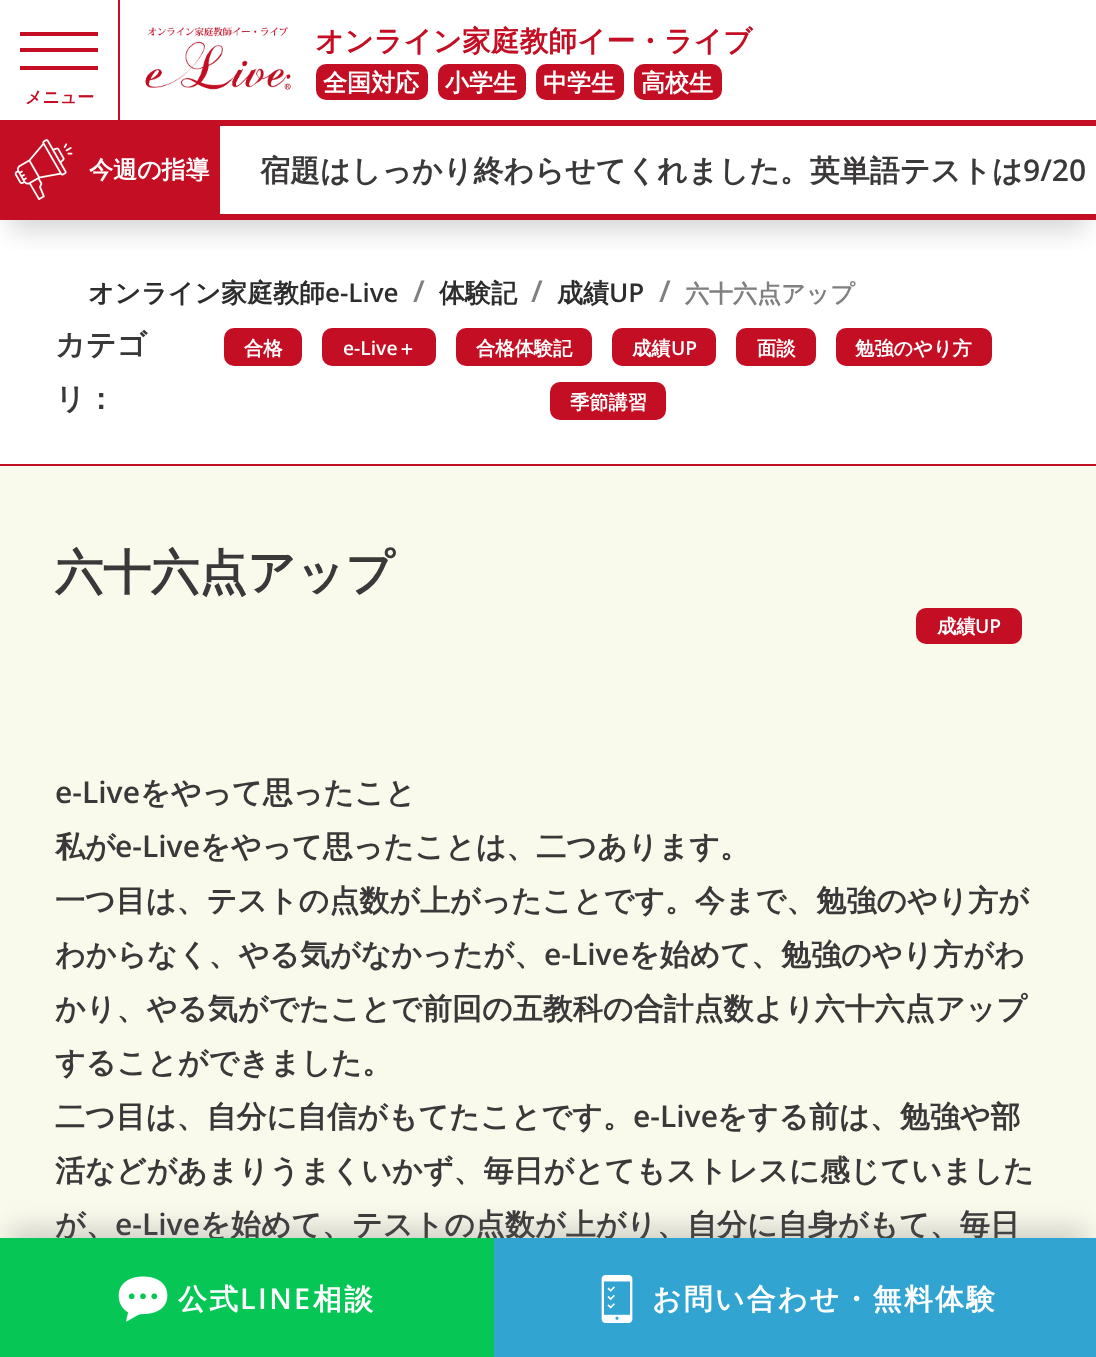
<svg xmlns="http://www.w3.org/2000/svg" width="1096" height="1357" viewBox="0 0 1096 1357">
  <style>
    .t1 { font: bold 28.75px WenQuanYi Zen Hei; fill: #c40e24; }
    .t2 { font: bold 24px WenQuanYi Zen Hei; fill: #fff; }
    .t3 { font: bold 17px WenQuanYi Zen Hei; fill: #c40e24; }
    .t4 { font: bold 30px WenQuanYi Zen Hei; fill: #3a3838; }
    .t5 { font: 600 30px Open Sans; fill: #3a3838; }
    .t6 { font: bold 26px WenQuanYi Zen Hei; fill: #2d2d2d; }
    .t7 { font: 600 26px Open Sans; fill: #2d2d2d; }
    .t8 { font: 600 30px Open Sans; fill: #808080; }
    .t9 { font: bold 24px WenQuanYi Zen Hei; fill: #808080; }
    .t10 { font: bold 19.25px WenQuanYi Zen Hei; fill: #fff; }
    .t11 { font: 600 19.25px Open Sans; fill: #fff; }
    .t12 { font: bold 48px WenQuanYi Zen Hei; fill: #3a3838; }
    .t13 { font: bold 28.75px WenQuanYi Zen Hei; letter-spacing: 2.4px; fill: #fff; }
    .t14 { font: 600 28.75px Open Sans; letter-spacing: 2.4px; fill: #fff; }
  </style>
  <defs>
    <clipPath id="clip1"><rect x="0" y="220" width="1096" height="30"/></clipPath>
  </defs>
  <rect width="100%" height="100%" fill="#fff"/>
  <image x="145" y="27" width="146" height="63" href="images/1.png"/>
  <text x="315" y="51" class="t1">オンライン家庭教師イー・ライブ</text>
  <rect x="316" y="64" width="112" height="36" rx="10" fill="#c40e24"/>
  <text x="323" y="91" class="t2">全国対応</text>
  <rect x="438" y="64" width="88" height="36" rx="10" fill="#c40e24"/>
  <text x="445" y="91" class="t2">小学生</text>
  <rect x="536" y="64" width="88" height="36" rx="10" fill="#c40e24"/>
  <text x="543" y="91" class="t2">中学生</text>
  <rect x="634" y="64" width="88" height="36" rx="10" fill="#c40e24"/>
  <text x="641" y="91" class="t2">高校生</text>
  <g clip-path="url(#clip1)">
    <rect x="10" y="150" width="1076" height="80" fill="#7474744d" filter="blur(13px)"/>
  </g>
  <rect x="118" y="0" width="2" height="120" fill="#c40e24"/>
  <rect x="20" y="32" width="78" height="4" fill="#c40e24"/>
  <rect x="20" y="48" width="78" height="4" fill="#c40e24"/>
  <rect x="20" y="66" width="78" height="4" fill="#c40e24"/>
  <text x="25" y="103" class="t3">メニュー</text>
  <rect x="0" y="120" width="1096" height="6" fill="#c40e24"/>
  <rect x="0" y="214" width="1096" height="6" fill="#c40e24"/>
  <rect x="0" y="126" width="220" height="88" fill="#c40e24"/>
  <image x="14" y="139" width="59" height="61" href="images/2.png"/>
  <text x="89" y="178" class="t2">今週の指導</text>
  <text x="260" y="181" class="t4">宿題はしっかり終わらせてくれました。英単語テストは</text>
  <text x="1023" y="181" class="t5">9/20</text>
  <rect x="0" y="464" width="1096" height="2" fill="#c40e24"/>
  <text x="88" y="302" class="t6">オンライン家庭教師</text>
  <text x="325" y="302" class="t7">e-Live</text>
  <text x="413" y="302" class="t8">/</text>
  <text x="439" y="302" class="t6">体験記</text>
  <text x="531" y="302" class="t8">/</text>
  <text x="557" y="302" class="t6">成績</text>
  <text x="609" y="302" class="t7">UP</text>
  <text x="659" y="302" class="t8">/</text>
  <text x="685" y="302" class="t9">六十六点アップ</text>
  <text x="55" y="355" class="t4">カテゴ</text>
  <text x="55" y="409" class="t4">リ：</text>
  <rect x="224" y="328" width="78" height="38" rx="10" fill="#c40e24"/>
  <text x="244" y="355" class="t10">合格</text>
  <rect x="322" y="328" width="114" height="38" rx="10" fill="#c40e24"/>
  <text x="343" y="355" class="t11">e-Live</text>
  <text x="397" y="355" class="t10">＋</text>
  <rect x="456" y="328" width="136" height="38" rx="10" fill="#c40e24"/>
  <text x="476" y="355" class="t10">合格体験記</text>
  <rect x="612" y="328" width="104" height="38" rx="10" fill="#c40e24"/>
  <text x="632" y="355" class="t10">成績</text>
  <text x="671" y="355" class="t11">UP</text>
  <rect x="736" y="328" width="80" height="38" rx="10" fill="#c40e24"/>
  <text x="757" y="355" class="t10">面談</text>
  <rect x="836" y="328" width="156" height="38" rx="10" fill="#c40e24"/>
  <text x="855" y="355" class="t10">勉強のやり方</text>
  <rect x="550" y="382" width="116" height="38" rx="10" fill="#c40e24"/>
  <text x="570" y="409" class="t10">季節講習</text>
  <rect x="0" y="466" width="1096" height="772" fill="#f9f9ec"/>
  <text x="55" y="589" class="t12">六十六点アップ</text>
  <rect x="916" y="608" width="106" height="36" rx="10" fill="#c40e24"/>
  <text x="937" y="633" class="t10">成績</text>
  <text x="975" y="633" class="t11">UP</text>
  <text x="55" y="803" class="t5">e-Live</text>
  <text x="140" y="803" class="t4">をやって思ったこと</text>
  <text x="55" y="857" class="t4">私が</text>
  <text x="115" y="857" class="t5">e-Live</text>
  <text x="200" y="857" class="t4">をやって思ったことは、二つあります。</text>
  <text x="55" y="911" class="t4">一つ目は、テストの点数が上がったことです。今まで、勉強のやり方が</text>
  <text x="55" y="965" class="t4">わからなく、やる気がなかったが、</text>
  <text x="544" y="965" class="t5">e-Live</text>
  <text x="629" y="965" class="t4">を始めて、勉強のやり方がわ</text>
  <text x="55" y="1019" class="t4">かり、やる気がでたことで前回の五教科の合計点数より六十六点アップ</text>
  <text x="55" y="1073" class="t4">することができました。</text>
  <text x="55" y="1127" class="t4">二つ目は、自分に自信がもてたことです。</text>
  <text x="633" y="1127" class="t5">e-Live</text>
  <text x="717" y="1127" class="t4">をする前は、勉強や部</text>
  <text x="55" y="1181" class="t4">活などがあまりうまくいかず、毎日がとてもストレスに感じていました</text>
  <text x="55" y="1235" class="t4">が、</text>
  <text x="115" y="1235" class="t5">e-Live</text>
  <text x="200" y="1235" class="t4">を始めて、テストの点数が上がり、自分に自身がもて、毎日</text>
  <rect x="10" y="1228" width="1076" height="100" fill="#7474744d" filter="blur(13px)"/>
  <rect x="0" y="1238" width="494" height="119" fill="#06c755"/>
  <image x="118" y="1276" width="50" height="46" href="images/3.png"/>
  <text x="178" y="1309" class="t13">公式</text>
  <text x="240" y="1309" class="t14">LINE</text>
  <text x="313" y="1309" class="t13">相談</text>
  <rect x="494" y="1238" width="602" height="119" fill="#31a4d1"/>
  <image x="601" y="1275" width="32" height="48" href="images/4.png"/>
  <text x="652" y="1309" class="t13">お問い合わせ・無料体験</text>
</svg>
